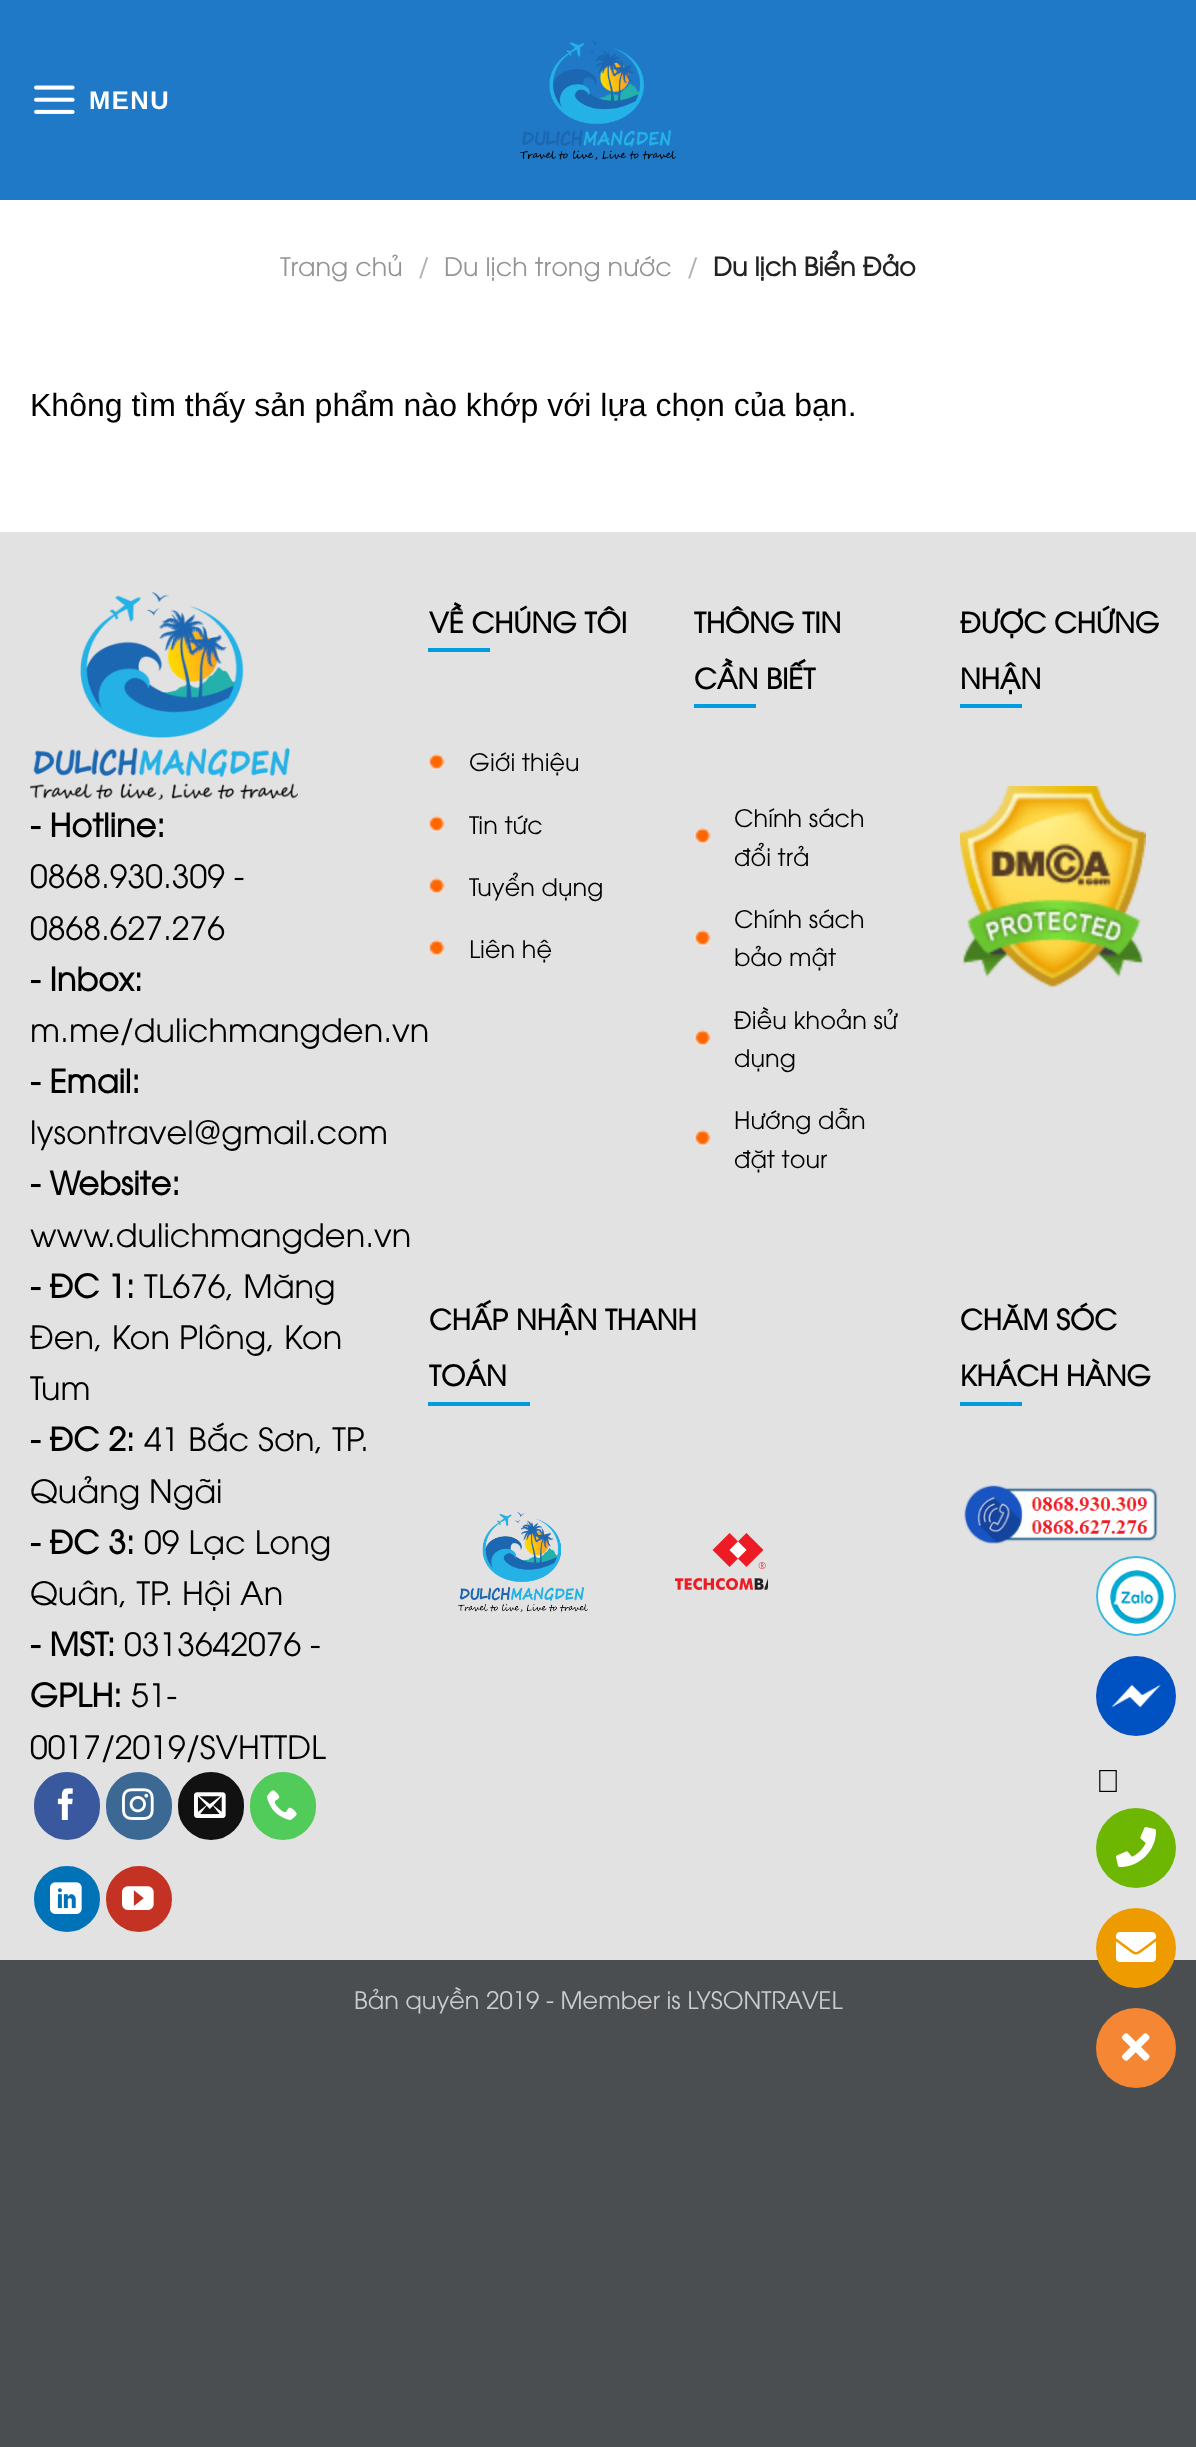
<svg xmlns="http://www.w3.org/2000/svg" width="1196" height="2447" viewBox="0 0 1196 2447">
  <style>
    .t1 { font: bold 25.5px Liberation Sans; letter-spacing: 1.5px; fill: #fff; }
    .t2 { font: 25.5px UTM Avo; fill: #949494; }
    .t3 { font: 25.5px UTM Avo; fill: #b2b2b2; }
    .t4 { font: bold 25.5px UTM Avo; fill: #222; }
    .t5 { font: 32px Liberation Sans; fill: #000; }
    .t6 { font: bold 32px UTM Avo; fill: #000; }
    .t7 { font: 32px UTM Avo; fill: #000; }
    .t8 { font: bold 28px UTM Avo; fill: #000; }
    .t9 { font: 24px UTM Avo; fill: #000; }
    .t10 { font: 24px UTM Avo; fill: #ccc; }
  </style>
  <rect width="100%" height="100%" fill="#4b4e51"/>
  <rect x="0" y="200" width="1196" height="332" fill="#fff"/>
  <rect x="0" y="0" width="1196" height="200" fill="#2079c7"/>
  <image x="34" y="85" width="41" height="29" href="images/1.png"/>
  <text x="89" y="109" class="t1">MENU</text>
  <image x="520" y="40" width="156" height="120" href="images/2.png"/>
  <text x="280" y="276" class="t2">Trang chủ</text>
  <text x="418" y="276" class="t3">/</text>
  <text x="444" y="276" class="t2">Du lịch trong nước</text>
  <text x="687" y="276" class="t3">/</text>
  <text x="713" y="276" class="t4">Du lịch Biển Đảo</text>
  <text x="30" y="416" class="t5">Không tìm thấy sản phẩm nào khớp với lựa chọn của bạn.</text>
  <rect x="0" y="532" width="1196" height="1428" fill="#e2e2e2"/>
  <image x="30" y="592" width="268" height="208" href="images/3.png"/>
  <text x="30" y="837" class="t6">- Hotline:</text>
  <text x="30" y="888" class="t7">0868.930.309 -</text>
  <text x="30" y="940" class="t7">0868.627.276</text>
  <text x="30" y="991" class="t6">- Inbox:</text>
  <text x="30" y="1042" class="t7">m.me/dulichmangden.vn</text>
  <text x="30" y="1093" class="t6">- Email:</text>
  <text x="30" y="1144" class="t7">lysontravel@gmail.com</text>
  <text x="30" y="1195" class="t6">- Website:</text>
  <text x="30" y="1247" class="t7">www.dulichmangden.vn</text>
  <text x="30" y="1298" class="t6">- ĐC 1:</text>
  <text x="144" y="1298" class="t7">TL676, Măng</text>
  <text x="30" y="1349" class="t7">Đen, Kon Plông, Kon</text>
  <text x="30" y="1400" class="t7">Tum</text>
  <text x="30" y="1451" class="t6">- ĐC 2:</text>
  <text x="144" y="1451" class="t7">41 Bắc Sơn, TP.</text>
  <text x="30" y="1503" class="t7">Quảng Ngãi</text>
  <text x="30" y="1554" class="t6">- ĐC 3:</text>
  <text x="144" y="1554" class="t7">09 Lạc Long</text>
  <text x="30" y="1605" class="t7">Quân, TP. Hội An</text>
  <text x="30" y="1656" class="t6">- MST:</text>
  <text x="124" y="1656" class="t7">0313642076 -</text>
  <text x="30" y="1707" class="t6">GPLH:</text>
  <text x="131" y="1707" class="t7">51-</text>
  <text x="30" y="1759" class="t7">0017/2019/SVHTTDL</text>
  <rect x="35" y="1773" width="64" height="66" rx="32" fill="#3a589d" stroke="#3a589d" stroke-width="2"/>
  <image x="57" y="1788" width="16" height="32" href="images/4.png"/>
  <rect x="107" y="1773" width="64" height="66" rx="32" fill="#3b6994" stroke="#3b6994" stroke-width="2"/>
  <image x="122" y="1788" width="32" height="32" href="images/5.png"/>
  <rect x="179" y="1773" width="64" height="66" rx="32" fill="#111" stroke="#111" stroke-width="2"/>
  <image x="194" y="1792" width="32" height="26" href="images/6.png"/>
  <rect x="251" y="1773" width="64" height="66" rx="32" fill="#51cb5a" stroke="#51cb5a" stroke-width="2"/>
  <image x="267" y="1790" width="30" height="30" href="images/7.png"/>
  <circle cx="67" cy="1899" r="32" fill="#0072b7" stroke="#0072b7" stroke-width="2"/>
  <image x="50" y="1882" width="32" height="32" href="images/8.png"/>
  <circle cx="139" cy="1899" r="32" fill="#c33223" stroke="#c33223" stroke-width="2"/>
  <image x="122" y="1886" width="32" height="24" href="images/9.png"/>
  <text x="429" y="633" class="t8">VỀ CHÚNG TÔI</text>
  <rect x="428" y="648" width="62" height="4" fill="#009cde"/>
  <image x="428" y="753" width="17" height="17" href="images/10.png"/>
  <text x="469" y="771" class="t9">Giới thiệu</text>
  <image x="428" y="815" width="17" height="17" href="images/10.png"/>
  <text x="469" y="834" class="t9">Tin tức</text>
  <image x="428" y="877" width="17" height="17" href="images/10.png"/>
  <text x="469" y="896" class="t9">Tuyển dụng</text>
  <image x="428" y="939" width="17" height="17" href="images/10.png"/>
  <text x="469" y="958" class="t9">Liên hệ</text>
  <text x="694" y="633" class="t8">THÔNG TIN</text>
  <text x="694" y="689" class="t8">CẦN BIẾT</text>
  <rect x="694" y="704" width="62" height="4" fill="#009cde"/>
  <image x="694" y="827" width="17" height="17" href="images/10.png"/>
  <text x="734" y="827" class="t9">Chính sách</text>
  <text x="734" y="866" class="t9">đổi trả</text>
  <image x="694" y="929" width="17" height="17" href="images/10.png"/>
  <text x="734" y="928" class="t9">Chính sách</text>
  <text x="734" y="966" class="t9">bảo mật</text>
  <image x="694" y="1029" width="17" height="17" href="images/10.png"/>
  <text x="734" y="1029" class="t9">Điều khoản sử</text>
  <text x="734" y="1067" class="t9">dụng</text>
  <image x="694" y="1129" width="17" height="17" href="images/10.png"/>
  <text x="734" y="1129" class="t9">Hướng dẫn</text>
  <text x="734" y="1168" class="t9">đặt tour</text>
  <text x="960" y="633" class="t8">ĐƯỢC CHỨNG</text>
  <text x="960" y="689" class="t8">NHẬN</text>
  <rect x="960" y="704" width="62" height="4" fill="#009cde"/>
  <image x="960" y="786" width="186" height="202" href="images/11.png"/>
  <text x="429" y="1330" class="t8">CHẤP NHẬN THANH</text>
  <text x="429" y="1386" class="t8">TOÁN</text>
  <rect x="428" y="1402" width="102" height="4" fill="#009cde"/>
  <image x="458" y="1512" width="130" height="100" href="images/12.png"/>
  <image x="675" y="1533" width="93" height="57" href="images/13.png"/>
  <text x="960" y="1330" class="t8">CHĂM SÓC</text>
  <text x="960" y="1386" class="t8">KHÁCH HÀNG</text>
  <rect x="960" y="1402" width="62" height="4" fill="#009cde"/>
  <image x="964" y="1485" width="194" height="59" href="images/14.png"/>
  <text x="354" y="2009" class="t10">Bản quyền 2019 - Member is LYSONTRAVEL</text>
  <circle cx="1136" cy="1596" r="40" fill="#fff"/>
  <image x="1110" y="1570" width="54" height="54" href="images/15.png"/>
  <circle cx="1136" cy="1596" r="39" fill="none" stroke="#38b9db" stroke-width="2"/>
  <circle cx="1136" cy="1696" r="40" fill="#0052c2"/>
  <image x="1111" y="1684" width="50" height="24" href="images/16.png"/>
  <image x="1099" y="1770" width="18" height="22" href="images/17.png"/>
  <circle cx="1136" cy="1848" r="40" fill="#6db703"/>
  <image x="1116" y="1827" width="40" height="40" href="images/18.png"/>
  <circle cx="1136" cy="1948" r="40" fill="#ee9b00"/>
  <image x="1116" y="1932" width="40" height="30" href="images/19.png"/>
  <circle cx="1136" cy="2048" r="40" fill="#f58634"/>
  <image x="1122" y="2033" width="28" height="28" href="images/20.png"/>
</svg>
